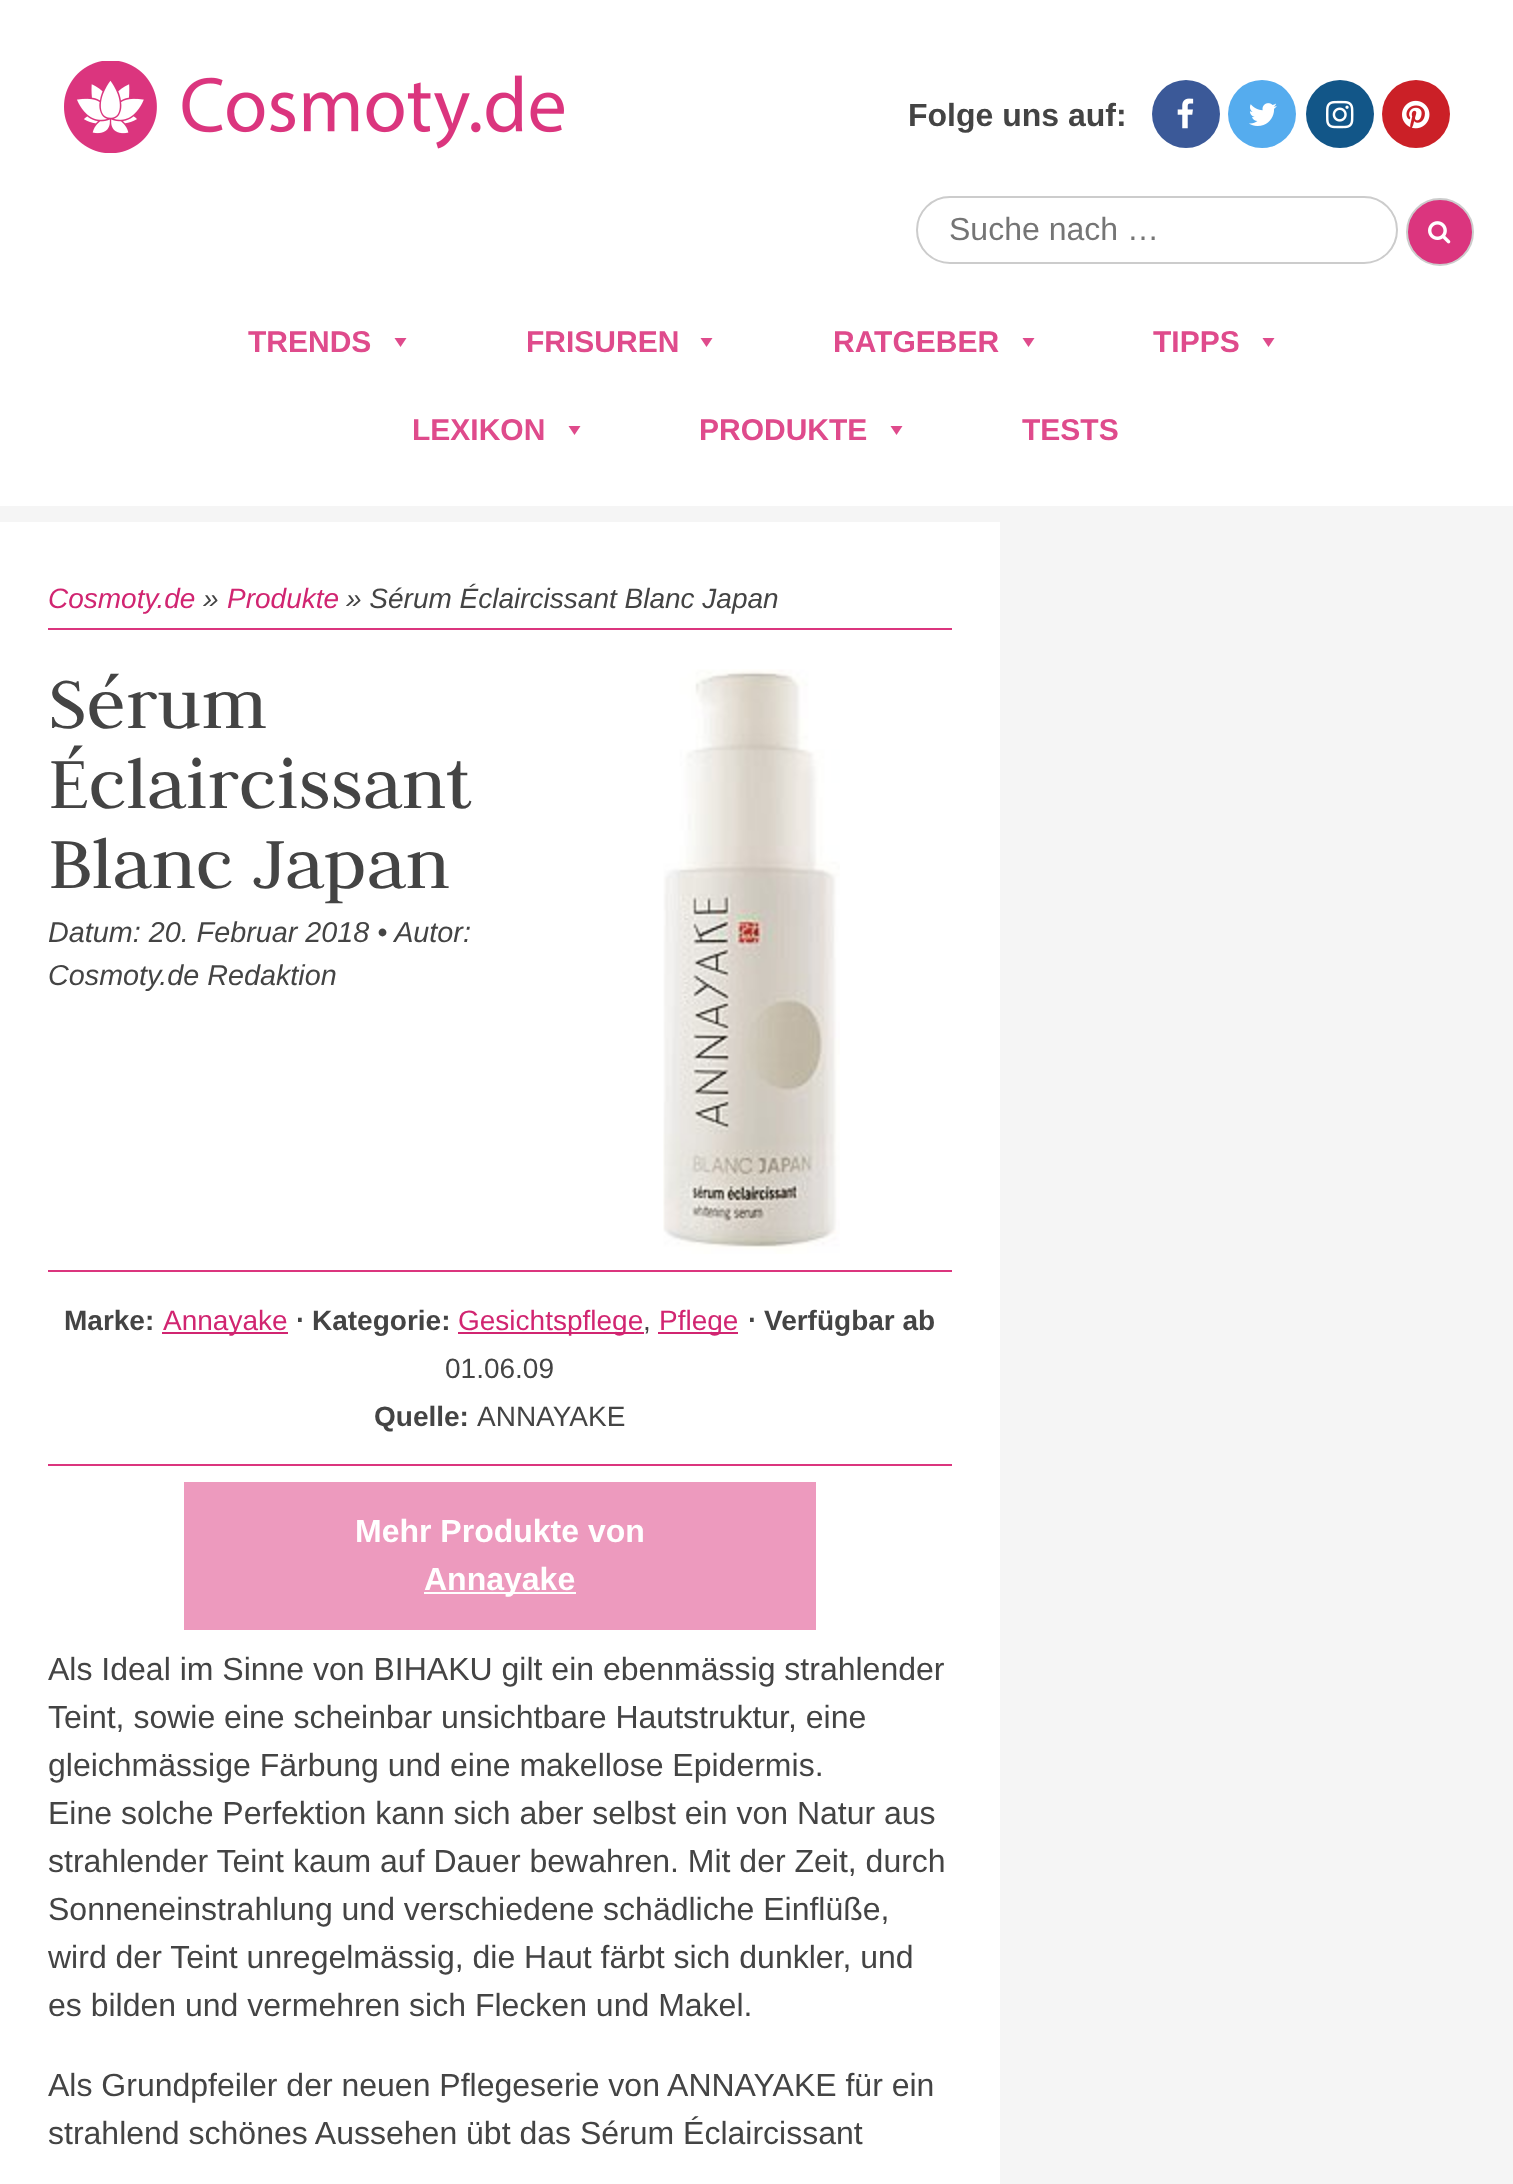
<svg xmlns="http://www.w3.org/2000/svg" width="1513" height="2184" viewBox="0 0 1513 2184">
  <style>
    .t1 { font: bold 32px Liberation Sans; fill: #444; }
    .t2 { font: 32px Liberation Sans; fill: #757575; }
    .t3 { font: bold 30px Liberation Sans; fill: #df4b8c; }
    .t4 { font: italic 28px Liberation Sans; fill: #d12571; }
    .t5 { font: italic 28px Liberation Sans; fill: #444; }
    .t6 { font: 80px Judson; fill: #444; }
    .t7 { font: italic 28.75px Liberation Sans; fill: #444; }
    .t8 { font: bold 28px Liberation Sans; fill: #444; }
    .t9 { font: 28px Liberation Sans; fill: #d12571; }
    .t10 { font: bold 28px DejaVu Sans; fill: #444; }
    .t11 { font: 28px Liberation Sans; fill: #444; }
    .t12 { font: bold 32px Liberation Sans; fill: #fff; }
    .t13 { font: 32px Liberation Sans; fill: #444; }
  </style>
  <rect width="100%" height="100%" fill="#f5f5f5"/>
  <rect x="0" y="0" width="1513" height="506" fill="#fff"/>
  <image x="64" y="61" width="500" height="92" href="images/1.png"/>
  <text x="908" y="126" class="t1">Folge uns auf:</text>
  <circle cx="1186" cy="114" r="34" fill="#3b5998"/>
  <image x="1177" y="98" width="17" height="31" href="images/2.png"/>
  <circle cx="1262" cy="114" r="34" fill="#55acee"/>
  <image x="1249" y="103" width="28" height="23" href="images/3.png"/>
  <circle cx="1340" cy="114" r="34" fill="#125688"/>
  <image x="1326" y="100" width="28" height="29" href="images/4.png"/>
  <circle cx="1416" cy="114" r="34" fill="#cb2027"/>
  <image x="1402" y="100" width="28" height="29" href="images/5.png"/>
  <rect x="917" y="197" width="480" height="66" rx="33" fill="none" stroke="#ccc" stroke-width="2"/>
  <text x="949" y="240" class="t2">Suche nach …</text>
  <circle cx="1440" cy="232" r="33" fill="#db357e" stroke="#ccc" stroke-width="2"/>
  <image x="1428" y="221" width="23" height="23" href="images/6.png"/>
  <text x="248" y="352" class="t3">TRENDS</text>
  <path d="M406.5 338L400.5 347L394.5 338Z" fill="#df4b8c"/>
  <text x="526" y="352" class="t3">FRISUREN</text>
  <path d="M712.5 338L706.5 347L700.5 338Z" fill="#df4b8c"/>
  <text x="833" y="352" class="t3">RATGEBER</text>
  <path d="M1034.5 338L1028.5 347L1022.5 338Z" fill="#df4b8c"/>
  <text x="1153" y="352" class="t3">TIPPS</text>
  <path d="M1274.5 338L1268.5 347L1262.5 338Z" fill="#df4b8c"/>
  <text x="412" y="440" class="t3">LEXIKON</text>
  <path d="M580.5 426L574.5 435L568.5 426Z" fill="#df4b8c"/>
  <text x="699" y="440" class="t3">PRODUKTE</text>
  <path d="M902.5 426L896.5 435L890.5 426Z" fill="#df4b8c"/>
  <text x="1022" y="440" class="t3">TESTS</text>
  <rect x="0" y="522" width="1000" height="1662" fill="#fff"/>
  <rect x="48" y="1270" width="904" height="2" fill="#db357e"/>
  <rect x="48" y="628" width="904" height="2" fill="#db357e"/>
  <text x="48" y="608" class="t4">Cosmoty.de</text>
  <text x="203" y="608" class="t5">»</text>
  <text x="227" y="608" class="t4">Produkte</text>
  <text x="346" y="608" class="t5">» Sérum Éclaircissant Blanc Japan</text>
  <text x="48" y="728" class="t6">Sérum</text>
  <text x="48" y="808" class="t6">Éclaircissant</text>
  <text x="48" y="888" class="t6">Blanc Japan</text>
  <image x="663" y="669" width="177" height="585" href="images/7.png"/>
  <text x="48" y="942" class="t7">Datum: 20. Februar 2018 • Autor:</text>
  <text x="48" y="985" class="t7">Cosmoty.de Redaktion</text>
  <rect x="48" y="1464" width="904" height="2" fill="#db357e"/>
  <text x="64" y="1330" class="t8">Marke:</text>
  <rect x="162" y="1332" width="126" height="2" fill="#d12571"/>
  <text x="163" y="1330" class="t9">Annayake</text>
  <text x="295" y="1330" class="t10">⋅</text>
  <text x="312" y="1330" class="t8">Kategorie:</text>
  <rect x="458" y="1332" width="186" height="2" fill="#d12571"/>
  <text x="458" y="1330" class="t9">Gesichtspflege</text>
  <rect x="658" y="1332" width="80" height="2" fill="#d12571"/>
  <text x="659" y="1330" class="t9">Pflege</text>
  <text x="747" y="1330" class="t10">⋅</text>
  <text x="764" y="1330" class="t8">Verfügbar ab</text>
  <text x="643" y="1330" class="t11">,</text>
  <text x="445" y="1378" class="t11">01.06.09</text>
  <text x="374" y="1426" class="t8">Quelle:</text>
  <text x="477" y="1426" class="t11">ANNAYAKE</text>
  <rect x="184" y="1482" width="632" height="148" fill="#ed9abe"/>
  <text x="355" y="1542" class="t12">Mehr Produkte von</text>
  <rect x="424" y="1592" width="152" height="2" fill="#fff"/>
  <text x="424" y="1590" class="t12">Annayake</text>
  <text x="48" y="1680" class="t13">Als Ideal im Sinne von BIHAKU gilt ein ebenmässig strahlender</text>
  <text x="48" y="1728" class="t13">Teint, sowie eine scheinbar unsichtbare Hautstruktur, eine</text>
  <text x="48" y="1776" class="t13">gleichmässige Färbung und eine makellose Epidermis.</text>
  <text x="48" y="1824" class="t13">Eine solche Perfektion kann sich aber selbst ein von Natur aus</text>
  <text x="48" y="1872" class="t13">strahlender Teint kaum auf Dauer bewahren. Mit der Zeit, durch</text>
  <text x="48" y="1920" class="t13">Sonneneinstrahlung und verschiedene schädliche Einflüße,</text>
  <text x="48" y="1968" class="t13">wird der Teint unregelmässig, die Haut färbt sich dunkler, und</text>
  <text x="48" y="2016" class="t13">es bilden und vermehren sich Flecken und Makel.</text>
  <text x="48" y="2096" class="t13">Als Grundpfeiler der neuen Pflegeserie von ANNAYAKE für ein</text>
  <text x="48" y="2144" class="t13">strahlend schönes Aussehen übt das Sérum Éclaircissant</text>
</svg>
